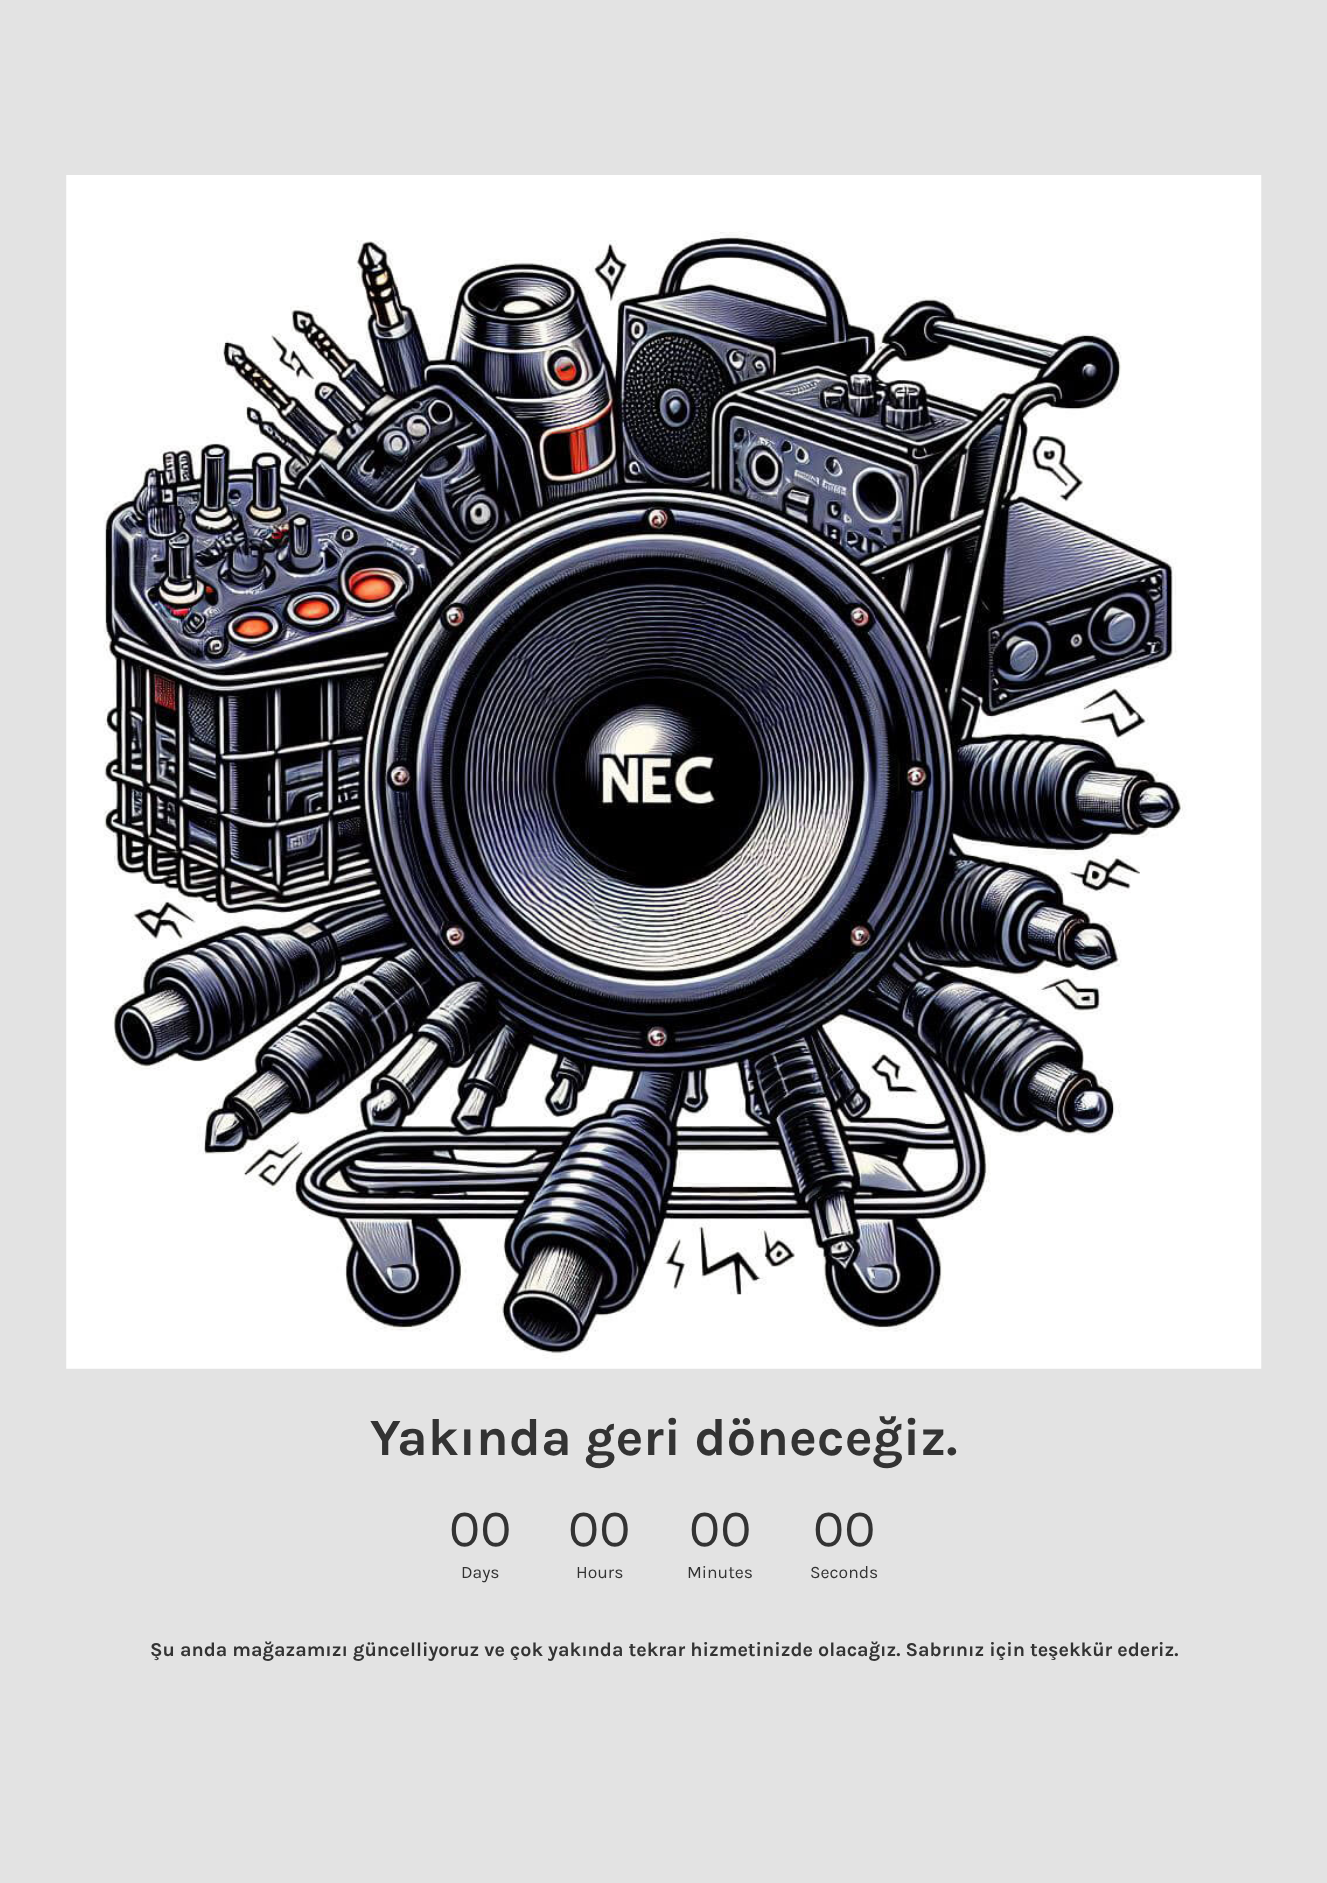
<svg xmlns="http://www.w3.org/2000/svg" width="1327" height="1883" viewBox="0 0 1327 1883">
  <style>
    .t1 { font: bold 52.5px Karla; fill: #333; }
    .t2 { font: 52.5px Karla; fill: #333; }
    .t3 { font: 17.5px Karla; fill: #333; }
    .t4 { font: bold 19.7px Karla; fill: #333; }
  </style>
  <rect width="100%" height="100%" fill="#e3e3e3"/>
  <image x="66" y="175" width="1196" height="1194" href="images/1.png"/>
  <text x="370" y="1455" class="t1">Yakında geri döneceğiz.</text>
  <text x="449" y="1546" class="t2">00</text>
  <text x="461" y="1578" class="t3">Days</text>
  <text x="568" y="1546" class="t2">00</text>
  <text x="576" y="1578" class="t3">Hours</text>
  <text x="689" y="1546" class="t2">00</text>
  <text x="687" y="1578" class="t3">Minutes</text>
  <text x="813" y="1546" class="t2">00</text>
  <text x="810" y="1578" class="t3">Seconds</text>
  <text x="150" y="1656" class="t4">Şu anda mağazamızı güncelliyoruz ve çok yakında tekrar hizmetinizde olacağız. Sabrınız için teşekkür ederiz.</text>
</svg>
